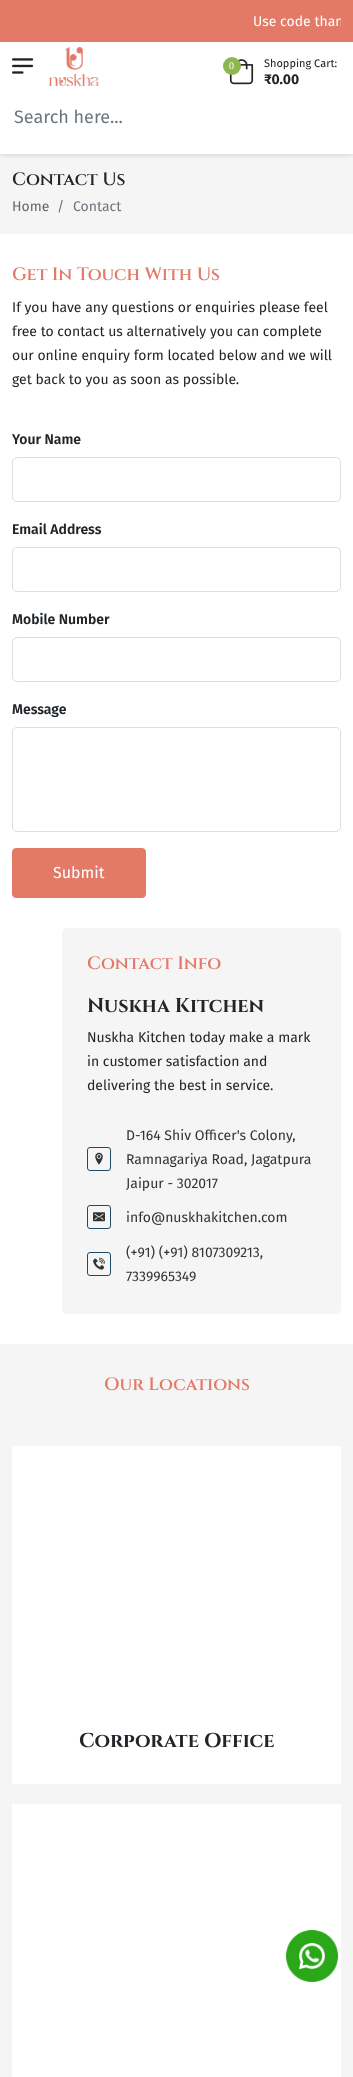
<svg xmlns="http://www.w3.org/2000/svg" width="353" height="2077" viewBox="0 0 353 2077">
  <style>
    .t1 { font: 14px Fira Sans; fill: #fff; }
    .t2 { font: 10px Liberation Serif; fill: #fff; }
    .t3 { font: 11px Fira Sans; fill: #222; }
    .t4 { font: bold 14px Fira Sans; fill: #222; }
    .t5 { font: 18px Fira Sans; fill: #6c757d; }
    .t6 { font: 600 18px Cinzel; fill: #212529; }
    .t7 { font: 14px Fira Sans; fill: #666; }
    .t8 { font: 14px Fira Sans; fill: #6c757d; }
    .t9 { font: 600 18px Cinzel; fill: #e37a67; }
    .t10 { font: 14px Fira Sans; fill: #212529; }
    .t11 { font: 600 14px Fira Sans; fill: #212529; }
    .t12 { font: 16px Fira Sans; fill: #fff; }
    .t13 { font: bold 20px Cinzel; fill: #212529; }
    .t14 { font: 14px Fira Sans; fill: #333; }
  </style>
  <defs>
    <clipPath id="clip1"><rect x="12" y="10" width="329" height="24"/></clipPath>
    <clipPath id="clip2"><rect x="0" y="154" width="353" height="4"/></clipPath>
  </defs>
  <rect width="100%" height="100%" fill="#fff"/>
  <rect x="0" y="0" width="353" height="42" fill="#e37a67"/>
  <g clip-path="url(#clip1)">
    <text x="253" y="26" class="t1">Use code than</text>
  </g>
  <rect x="0" y="154" width="353" height="80" fill="#f5f5f5"/>
  <g clip-path="url(#clip2)">
    <rect x="0" y="44" width="353" height="112" fill="#0000001a" filter="blur(2.5px)"/>
  </g>
  <image x="12" y="58" width="22" height="16" href="images/1.png"/>
  <image x="49" y="47" width="50" height="39" href="images/2.png"/>
  <image x="229" y="59" width="25" height="26" href="images/3.png"/>
  <circle cx="232" cy="66" r="9" fill="#8eb74f"/>
  <text x="229" y="69" class="t2">0</text>
  <text x="264" y="67" class="t3">Shopping Cart:</text>
  <text x="264" y="84" class="t4">₹0.00</text>
  <text x="14" y="123" class="t5">Search here...</text>
  <text x="12" y="185" class="t6">Contact Us</text>
  <text x="12" y="211" class="t7">Home</text>
  <text x="57" y="211" class="t8">/</text>
  <text x="73" y="211" class="t8">Contact</text>
  <text x="12" y="280" class="t9">Get In Touch With Us</text>
  <text x="12" y="312" class="t10">If you have any questions or enquiries please feel</text>
  <text x="12" y="336" class="t10">free to contact us alternatively you can complete</text>
  <text x="12" y="360" class="t10">our online enquiry form located below and we will</text>
  <text x="12" y="384" class="t10">get back to you as soon as possible.</text>
  <text x="12" y="444" class="t11">Your Name</text>
  <rect x="12.5" y="457.5" width="328" height="44" rx="4.5" fill="none" stroke="#ddd"/>
  <text x="12" y="534" class="t11">Email Address</text>
  <rect x="12.5" y="547.5" width="328" height="44" rx="4.5" fill="none" stroke="#ddd"/>
  <text x="12" y="624" class="t11">Mobile Number</text>
  <rect x="12.5" y="637.5" width="328" height="44" rx="4.5" fill="none" stroke="#ddd"/>
  <text x="12" y="714" class="t11">Message</text>
  <rect x="12.5" y="727.5" width="328" height="104" rx="4.5" fill="none" stroke="#ddd"/>
  <rect x="12.5" y="848.5" width="133" height="49" rx="3.5" fill="#e37967" stroke="#e37967"/>
  <text x="53" y="878" class="t12">Submit</text>
  <rect x="62" y="928" width="279" height="386" rx="5" fill="#f5f5f5"/>
  <text x="87" y="969" class="t9">Contact Info</text>
  <text x="87" y="1012" class="t13">Nuskha Kitchen</text>
  <text x="87" y="1042" class="t10">Nuskha Kitchen today make a mark</text>
  <text x="87" y="1066" class="t10">in customer satisfaction and</text>
  <text x="87" y="1090" class="t10">delivering the best in service.</text>
  <rect x="87.5" y="1147.5" width="23" height="23" rx="2.5" fill="none" stroke="#204a63"/>
  <image x="95" y="1152" width="8" height="13" href="images/4.png"/>
  <text x="126" y="1140" class="t14">D-164 Shiv Officer's Colony,</text>
  <text x="126" y="1164" class="t14">Ramnagariya Road, Jagatpura</text>
  <text x="126" y="1188" class="t14">Jaipur - 302017</text>
  <rect x="87.5" y="1205.5" width="23" height="23" rx="2.5" fill="none" stroke="#204a63"/>
  <image x="93" y="1212" width="12" height="10" href="images/5.png"/>
  <text x="126" y="1222" class="t14">info@nuskhakitchen.com</text>
  <rect x="87.5" y="1252.5" width="23" height="23" rx="2.5" fill="none" stroke="#204a63"/>
  <image x="93" y="1257" width="12" height="13" href="images/6.png"/>
  <text x="126" y="1257" class="t14">(+91) (+91) 8107309213,</text>
  <text x="126" y="1281" class="t14">7339965349</text>
  <rect x="0" y="1344" width="353" height="733" fill="#f5f5f5"/>
  <text x="104" y="1390" class="t9">Our Locations</text>
  <rect x="12" y="1446" width="329" height="338" fill="#fff"/>
  <text x="79" y="1747" class="t13">Corporate Office</text>
  <rect x="12" y="1804" width="329" height="273" fill="#fff"/>
  <image x="286" y="1930" width="52" height="52" href="images/7.png"/>
</svg>
